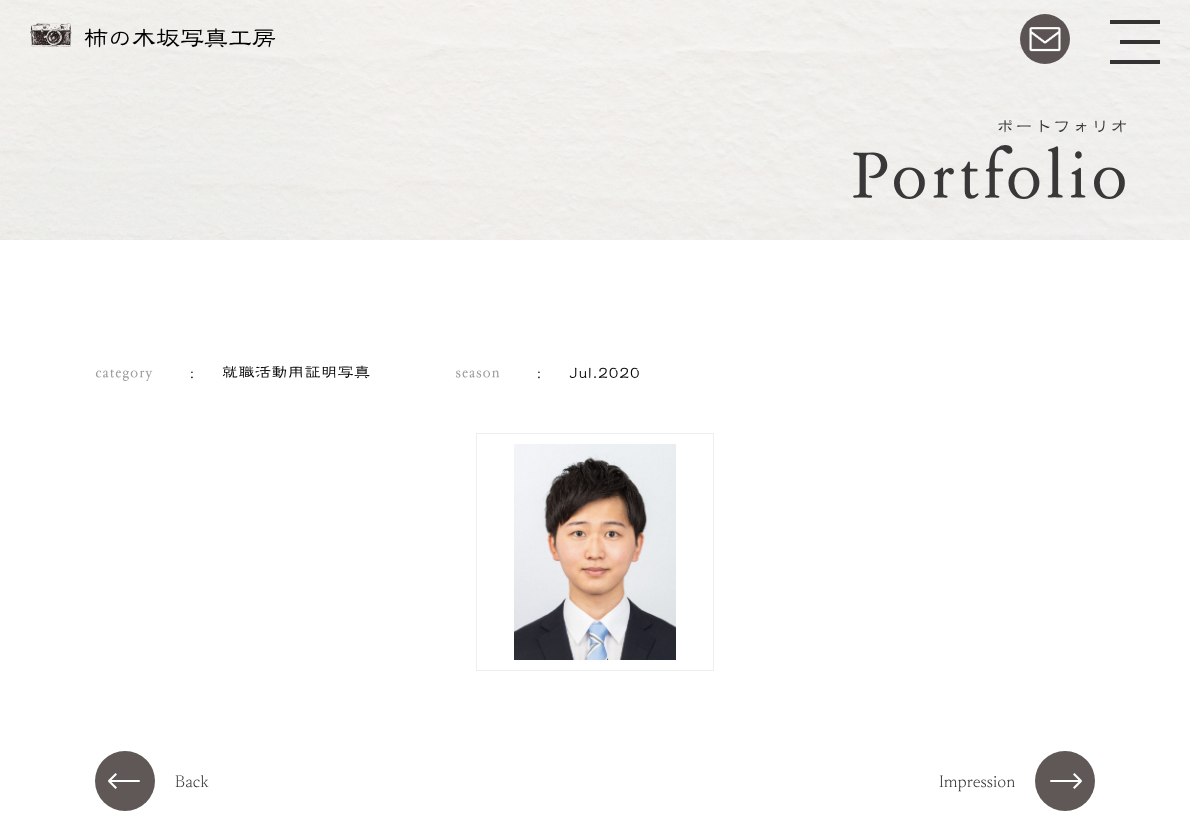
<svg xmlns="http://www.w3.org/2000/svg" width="1190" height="835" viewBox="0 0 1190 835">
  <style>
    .t1 { font: 300 24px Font; fill: #000; }
    .t2 { font: 300 18px Font; letter-spacing: 1px; fill: #383838; }
    .t3 { font: 500 72px Font; letter-spacing: 1.75px; fill: #383838; }
    .t4 { font: 500 16px Font; letter-spacing: 0.5px; fill: #9c9c9c; }
    .t5 { font: 14px Liberation Serif; letter-spacing: 0.5px; fill: #060606; }
    .t6 { font: 300 16px Font; letter-spacing: 0.5px; fill: #060606; }
    .t7 { font: 16px Font; fill: #383838; }
  </style>
  <rect width="100%" height="100%" fill="#fff"/>
  <image x="0" y="0" width="1190" height="240" href="images/1.png"/>
  <image x="30" y="23" width="42" height="24" href="images/2.png"/>
  <text x="84" y="47" class="t1">柿の木坂写真工房</text>
  <circle cx="1045" cy="39" r="25" fill="#5b5452"/>
  <image x="1029" y="27" width="32" height="25" href="images/3.png"/>
  <rect x="1110" y="20" width="50" height="4" fill="#333"/>
  <rect x="1120" y="40" width="40" height="4" fill="#333"/>
  <rect x="1110" y="60" width="50" height="4" fill="#333"/>
  <text x="996" y="133" class="t2">ポートフォリオ</text>
  <text x="850" y="201" class="t3">Portfolio</text>
  <text x="95" y="378" class="t4">category</text>
  <text x="190" y="378" class="t5">:</text>
  <text x="222" y="378" class="t6">就職活動用証明写真</text>
  <text x="455" y="378" class="t4">season</text>
  <text x="537" y="378" class="t5">:</text>
  <text x="569" y="378" class="t6">Jul.2020</text>
  <rect x="476.5" y="433.5" width="237" height="237" fill="none" stroke="#eee"/>
  <image x="514" y="444" width="162" height="216" href="images/4.png"/>
  <circle cx="125" cy="781" r="30" fill="#5f5856"/>
  <rect x="110" y="780" width="30" height="2" rx="1" fill="#fff"/>
  <path d="M115.5 789L108 781.5L109.5 780L117 787.5Z" fill="#fff"/>
  <path d="M109.5 782L108 780.5L115.5 773L117 774.5Z" fill="#fff"/>
  <text x="175" y="787" class="t7">Back</text>
  <text x="939" y="787" class="t7">Impression</text>
  <circle cx="1065" cy="781" r="30" fill="#5f5856"/>
  <rect x="1050" y="780" width="30" height="2" rx="1" fill="#fff"/>
  <path d="M1074.5 773L1082 780.5L1080.5 782L1073 774.5Z" fill="#fff"/>
  <path d="M1080.5 780L1082 781.5L1074.5 789L1073 787.5Z" fill="#fff"/>
</svg>
